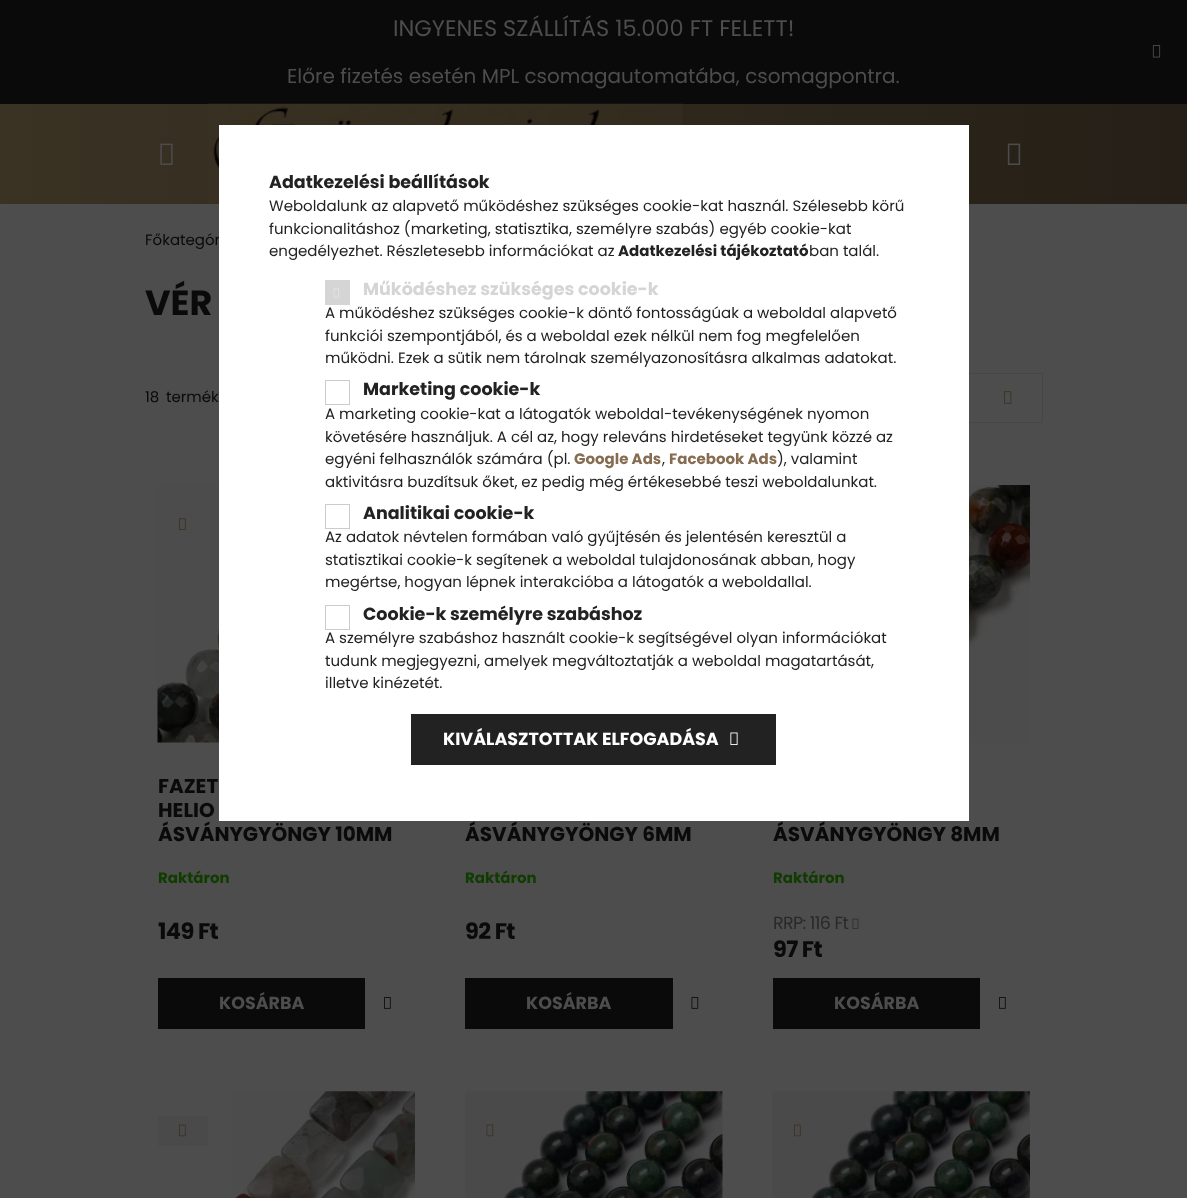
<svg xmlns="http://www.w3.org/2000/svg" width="1187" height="1198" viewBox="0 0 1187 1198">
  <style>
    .t1 { font: 22.5px Poppins; fill: #4d4d4d; }
    .t2 { font: 20px Poppins; fill: #4d4d4d; }
    .t3 { font: 15px Poppins; fill: #0a0a0a; }
    .t4 { font: bold 35px Poppins; fill: #0a0a0a; }
    .t5 { font: bold 20px Poppins; fill: #0a0a0a; }
    .t6 { font: bold 15px Poppins; fill: #103c00; }
    .t7 { font: bold 22.5px Poppins; letter-spacing: -0.6px; fill: #0a0a0a; }
    .t8 { font: bold 17.5px Poppins; fill: #4d4d4d; }
    .t9 { font: 17.5px Poppins; letter-spacing: -0.6px; fill: #292929; }
    .t10 { font: bold 17.5px Poppins; fill: #222; }
    .t11 { font: 15px Poppins; fill: #222; }
    .t12 { font: bold 15px Poppins; fill: #222; }
    .t13 { font: bold 17.5px Poppins; fill: #d5d5d5; }
    .t14 { font: bold 15px Poppins; fill: #866d51; }
    .t15 { font: bold 17.5px Poppins; fill: #fff; }
  </style>
  <defs>
    <linearGradient id="g1" gradientUnits="userSpaceOnUse" x1="0" y1="154" x2="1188" y2="154"><stop offset="0" stop-color="#3a3223"/><stop offset="1" stop-color="#261f17"/></linearGradient>
    <linearGradient id="g2" gradientUnits="userSpaceOnUse" x1="-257" y1="1003" x2="365" y2="1003"><stop offset="0" stop-color="#3a3223"/><stop offset="0.33" stop-color="#261f17"/><stop offset="0.67" stop-color="#0a0a0a"/><stop offset="1" stop-color="#0a0a0a"/></linearGradient>
    <linearGradient id="g3" gradientUnits="userSpaceOnUse" x1="50" y1="1003" x2="673" y2="1003"><stop offset="0" stop-color="#3a3223"/><stop offset="0.33" stop-color="#261f17"/><stop offset="0.67" stop-color="#0a0a0a"/><stop offset="1" stop-color="#0a0a0a"/></linearGradient>
    <linearGradient id="g4" gradientUnits="userSpaceOnUse" x1="358" y1="1003" x2="980" y2="1003"><stop offset="0" stop-color="#3a3223"/><stop offset="0.33" stop-color="#261f17"/><stop offset="0.67" stop-color="#0a0a0a"/><stop offset="1" stop-color="#0a0a0a"/></linearGradient>
    <linearGradient id="g5" gradientUnits="userSpaceOnUse" x1="-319" y1="739" x2="776" y2="739"><stop offset="0" stop-color="#c0a673"/><stop offset="0.33" stop-color="#80674d"/><stop offset="0.67" stop-color="#222"/><stop offset="1" stop-color="#222"/></linearGradient>
  </defs>
  <rect width="100%" height="100%" fill="#4d4d4d"/>
  <rect x="0" y="0" width="1187" height="104" fill="#0a0a0a"/>
  <text x="393" y="36" class="t1">INGYENES SZÁLLÍTÁS 15.000 FT FELETT!</text>
  <image x="1152" y="45" width="9" height="13" href="images/1.png"/>
  <text x="287" y="83" class="t2">Előre fizetés esetén MPL csomagautomatába, csomagpontra.</text>
  <rect x="0" y="104" width="1187" height="100" fill="url(#g1)"/>
  <image x="160" y="143" width="13" height="22" href="images/2.png"/>
  <image x="207" y="103" width="476" height="101" href="images/3.png"/>
  <image x="1007" y="143" width="14" height="22" href="images/4.png"/>
  <text x="145" y="245" class="t3">Főkategór</text>
  <text x="145" y="315" class="t4">VÉR</text>
  <text x="145" y="402" class="t3">18</text>
  <text x="166" y="402" class="t3">termék</text>
  <rect x="793.5" y="373.5" width="249" height="49" fill="none" stroke="#464646"/>
  <image x="1004" y="391" width="8" height="13" href="images/5.png"/>
  <image x="157" y="485" width="62" height="258" href="images/6.png"/>
  <image x="179" y="518" width="7" height="12" href="images/7.png"/>
  <text x="158" y="793" class="t5">FAZET</text>
  <text x="158" y="817" class="t5">HELIO</text>
  <text x="158" y="841" class="t5">ÁSVÁNYGYÖNGY 10MM</text>
  <text x="158" y="883" class="t6">Raktáron</text>
  <text x="158" y="939" class="t7">149 Ft</text>
  <rect x="158" y="978" width="207" height="51" fill="url(#g2)"/>
  <text x="219" y="1009" class="t8">KOSÁRBA</text>
  <image x="384" y="997" width="7" height="12" href="images/8.png"/>
  <text x="465" y="841" class="t5">ÁSVÁNYGYÖNGY 6MM</text>
  <text x="465" y="883" class="t6">Raktáron</text>
  <text x="465" y="939" class="t7">92 Ft</text>
  <rect x="465" y="978" width="208" height="51" fill="url(#g3)"/>
  <text x="526" y="1009" class="t8">KOSÁRBA</text>
  <image x="691" y="997" width="8" height="12" href="images/9.png"/>
  <image x="969" y="485" width="61" height="258" href="images/10.png"/>
  <text x="773" y="841" class="t5">ÁSVÁNYGYÖNGY 8MM</text>
  <text x="773" y="883" class="t6">Raktáron</text>
  <text x="773" y="929" class="t9">RRP: 116 Ft</text>
  <image x="852" y="918" width="7" height="11" href="images/11.png"/>
  <text x="773" y="957" class="t7">97 Ft</text>
  <rect x="773" y="978" width="207" height="51" fill="url(#g4)"/>
  <text x="834" y="1009" class="t8">KOSÁRBA</text>
  <image x="999" y="997" width="7" height="12" href="images/8.png"/>
  <rect x="158" y="1116" width="50" height="30" fill="#4a4a4a"/>
  <image x="179" y="1124" width="7" height="13" href="images/12.png"/>
  <image x="233" y="1091" width="182" height="107" href="images/13.png"/>
  <image x="465" y="1091" width="258" height="107" href="images/14.png"/>
  <image x="486" y="1124" width="8" height="13" href="images/15.png"/>
  <image x="772" y="1091" width="258" height="107" href="images/16.png"/>
  <image x="794" y="1124" width="7" height="13" href="images/12.png"/>
  <rect x="219" y="125" width="750" height="696" fill="#fff"/>
  <text x="269" y="188" class="t10">Adatkezelési beállítások</text>
  <text x="269" y="211" class="t11">Weboldalunk az alapvető működéshez szükséges cookie-kat használ. Szélesebb körű</text>
  <text x="269" y="234" class="t11">funkcionalitáshoz (marketing, statisztika, személyre szabás) egyéb cookie-kat</text>
  <text x="269" y="256" class="t11">engedélyezhet. Részletesebb információkat az</text>
  <text x="618" y="256" class="t12">Adatkezelési tájékoztató</text>
  <text x="809" y="256" class="t11">ban talál.</text>
  <rect x="325" y="280" width="25" height="25" fill="#d5d5d5"/>
  <image x="333" y="288" width="6" height="10" href="images/17.png"/>
  <text x="363" y="295" class="t13">Működéshez szükséges cookie-k</text>
  <text x="325" y="318" class="t11">A működéshez szükséges cookie-k döntő fontosságúak a weboldal alapvető</text>
  <text x="325" y="341" class="t11">funkciói szempontjából, és a weboldal ezek nélkül nem fog megfelelően</text>
  <text x="325" y="363" class="t11">működni. Ezek a sütik nem tárolnak személyazonosításra alkalmas adatokat.</text>
  <rect x="325.5" y="380.5" width="24" height="24" fill="none" stroke="#ccc"/>
  <text x="363" y="395" class="t10">Marketing cookie-k</text>
  <text x="325" y="419" class="t11">A marketing cookie-kat a látogatók weboldal-tevékenységének nyomon</text>
  <text x="325" y="442" class="t11">követésére használjuk. A cél az, hogy releváns hirdetéseket tegyünk közzé az</text>
  <text x="325" y="464" class="t11">egyéni felhasználók számára (pl.</text>
  <text x="574" y="464" class="t14">Google Ads</text>
  <text x="662" y="464" class="t11">,</text>
  <text x="669" y="464" class="t14">Facebook Ads</text>
  <text x="777" y="464" class="t11">), valamint</text>
  <text x="325" y="487" class="t11">aktivitásra buzdítsuk őket, ez pedig még értékesebbé teszi weboldalunkat.</text>
  <rect x="325.5" y="504.5" width="24" height="24" fill="none" stroke="#ccc"/>
  <text x="363" y="519" class="t10">Analitikai cookie-k</text>
  <text x="325" y="542" class="t11">Az adatok névtelen formában való gyűjtésén és jelentésén keresztül a</text>
  <text x="325" y="565" class="t11">statisztikai cookie-k segítenek a weboldal tulajdonosának abban, hogy</text>
  <text x="325" y="587" class="t11">megértse, hogyan lépnek interakcióba a látogatók a weboldallal.</text>
  <rect x="325.5" y="605.5" width="24" height="24" fill="none" stroke="#ccc"/>
  <text x="363" y="620" class="t10">Cookie-k személyre szabáshoz</text>
  <text x="325" y="643" class="t11">A személyre szabáshoz használt cookie-k segítségével olyan információkat</text>
  <text x="325" y="666" class="t11">tudunk megjegyezni, amelyek megváltoztatják a weboldal magatartását,</text>
  <text x="325" y="688" class="t11">illetve kinézetét.</text>
  <rect x="411" y="714" width="365" height="51" fill="url(#g5)"/>
  <text x="443" y="745" class="t15">KIVÁLASZTOTTAK ELFOGADÁSA</text>
  <image x="730" y="732" width="8" height="13" href="images/18.png"/>
</svg>
